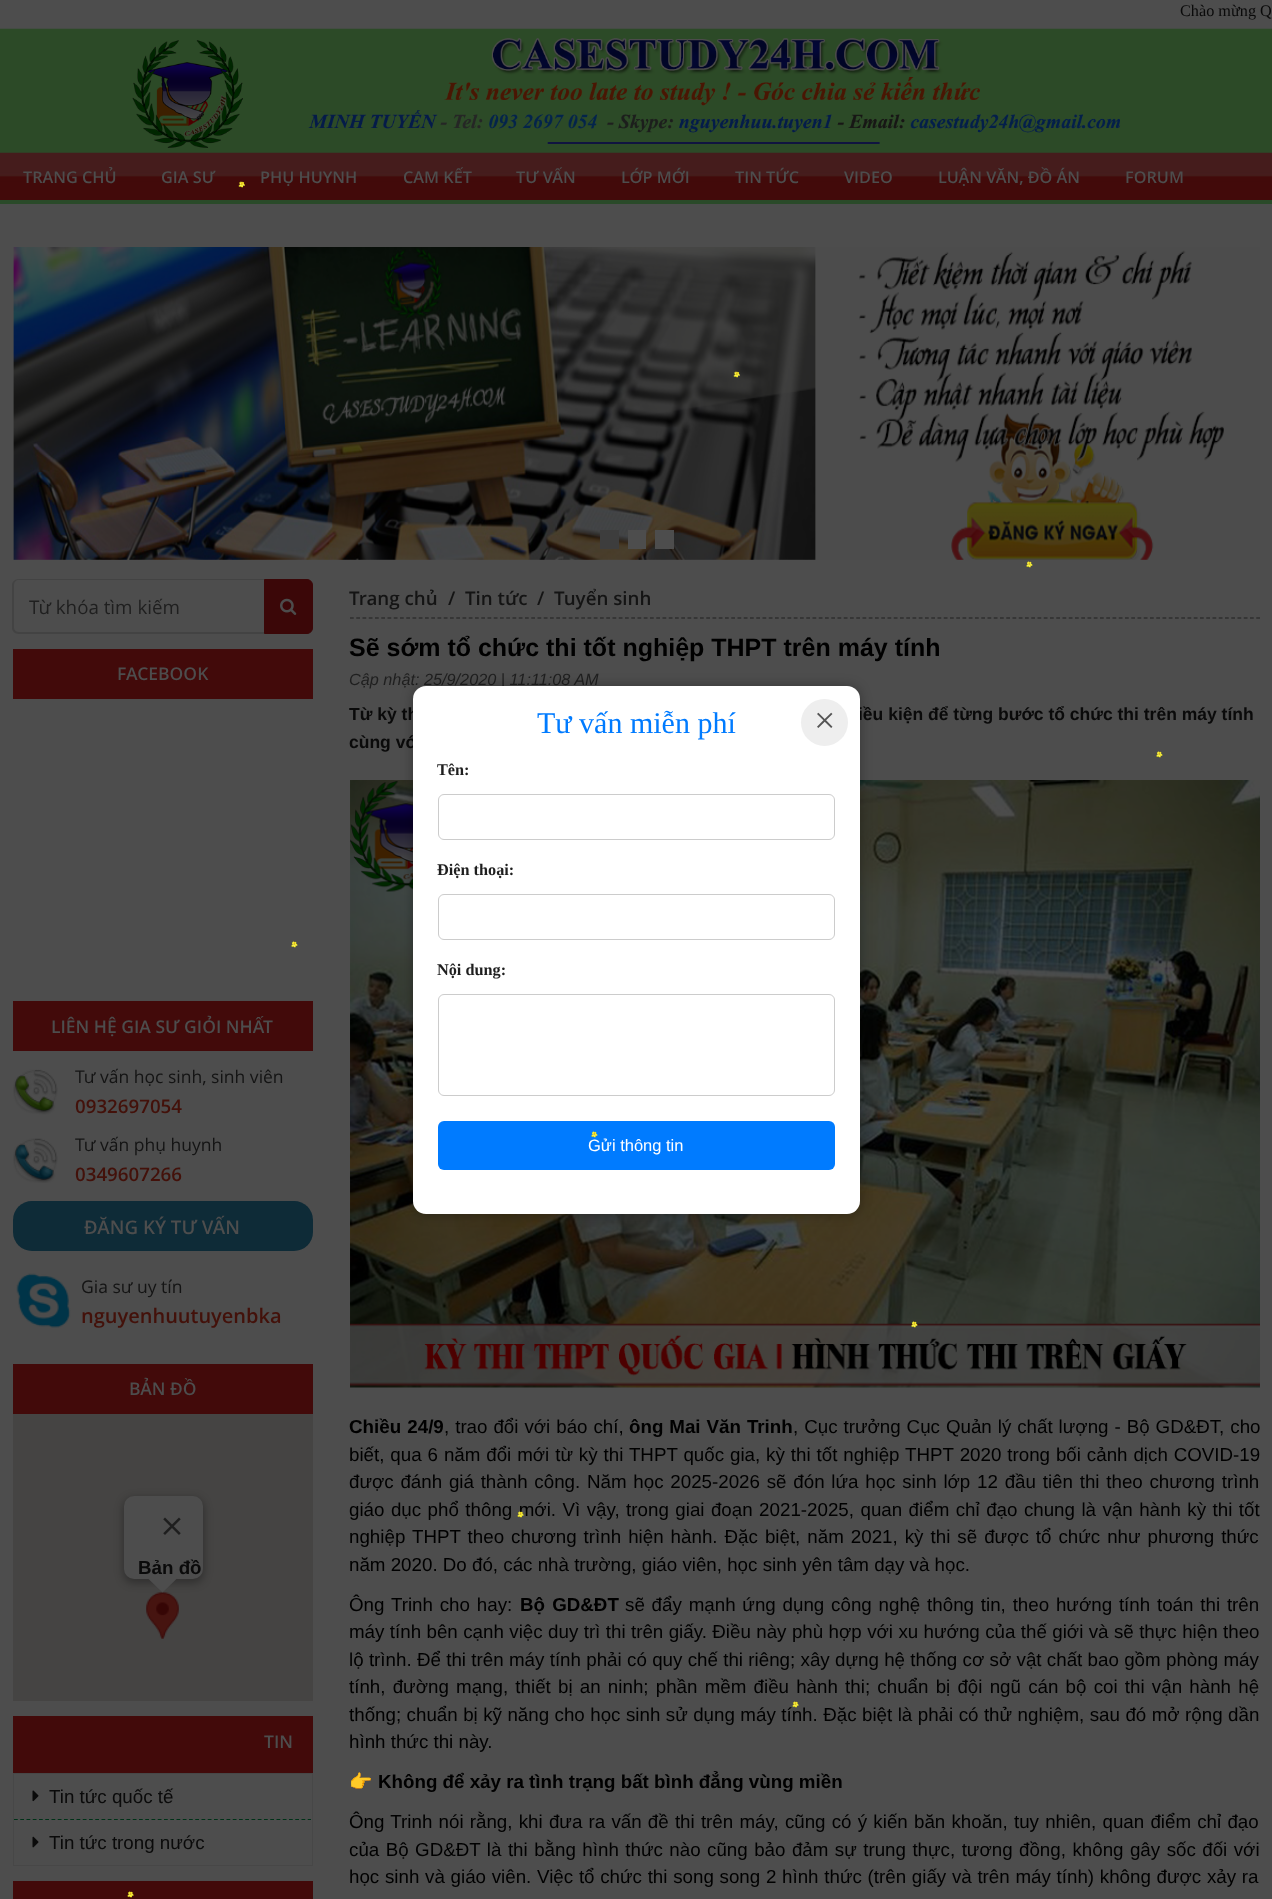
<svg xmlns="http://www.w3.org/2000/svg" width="1272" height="1899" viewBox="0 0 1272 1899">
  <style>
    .t1 { font: 16.25px Liberation Serif; fill: #0a0a0a; }
    .t2 { font: 600 16.25px Open Sans; fill: #4d4d4d; }
    .t3 { font: 18.75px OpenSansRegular; fill: #1f1f1f; }
    .t4 { font: 600 17.5px Open Sans; fill: #4d4d4d; }
    .t5 { font: 17.5px OpenSansRegular; fill: #141414; }
    .t6 { font: 600 18.75px Open Sans; fill: #43110a; }
    .t7 { font: 600 18.75px Open Sans; fill: #4d4d4d; }
    .t8 { font: 600 20px Open Sans; fill: #43110a; }
    .t9 { font: bold 18.75px Liberation Sans; fill: #0a0a0a; }
    .t10 { font: 18.75px Liberation Sans; fill: #0a0a0a; }
    .t11 { font: 600 18.75px Open Sans; fill: #141414; }
    .t12 { font: bold 25px Liberation Sans; fill: #000; }
    .t13 { font: italic 16.25px Liberation Sans; fill: #1f1f1f; }
    .t14 { font: bold 17.5px Liberation Sans; fill: #0a0a0a; }
    .t15 { font: bold 18.75px Liberation Sans; fill: #000; }
    .t16 { font: 18.75px Liberation Sans; fill: #000; }
    .t17 { font: bold 18.75px Noto Color Emoji; fill: #000; }
    .t18 { font: 30px Liberation Serif; fill: #007bff; }
    .t19 { font: 38px Liberation Serif; fill: #555; }
    .t20 { font: bold 16.25px Liberation Serif; fill: #1f1f1f; }
    .t21 { font: 16.5px Liberation Sans; fill: #fff; }
  </style>
  <rect width="100%" height="100%" fill="#4d4d4d"/>
  <text x="1180" y="16" class="t1">Chào mừng Q</text>
  <rect x="0" y="152" width="1272" height="52" fill="#2a4a29"/>
  <image x="0" y="152" width="1272" height="48" href="images/2.png"/>
  <image x="0" y="28" width="1272" height="125" href="images/1.png"/>
  <text x="23" y="183" class="t2">TRANG CHỦ</text>
  <text x="161" y="183" class="t2">GIA SƯ</text>
  <text x="260" y="183" class="t2">PHỤ HUYNH</text>
  <text x="403" y="183" class="t2">CAM KẾT</text>
  <text x="516" y="183" class="t2">TƯ VẤN</text>
  <text x="621" y="183" class="t2">LỚP MỚI</text>
  <text x="735" y="183" class="t2">TIN TỨC</text>
  <text x="844" y="183" class="t2">VIDEO</text>
  <text x="938" y="183" class="t2">LUẬN VĂN, ĐỒ ÁN</text>
  <text x="1125" y="183" class="t2">FORUM</text>
  <image x="238" y="181" width="7" height="7" href="images/3.png"/>
  <image x="13" y="247" width="1247" height="313" href="images/4.png"/>
  <rect x="600" y="530" width="19" height="19" fill="#3d3d3d"/>
  <rect x="628" y="530" width="18" height="19" fill="#4d4d4d"/>
  <rect x="655" y="530" width="19" height="19" fill="#4d4d4d"/>
  <image x="733" y="371" width="7" height="7" href="images/5.png"/>
  <image x="1026" y="561" width="7" height="7" href="images/6.png"/>
  <path d="M19 579H264V634H19C15 634 12 631 12 628V585C12 582 15 579 19 579ZM19 580H264V632H19C16 632 14 630 14 628V585C14 582 16 580 19 580Z" fill="#434343" fill-rule="evenodd"/>
  <text x="29" y="614" class="t3">Từ khóa tìm kiếm</text>
  <path d="M264.5 579.5H307C310 579.5 312.5 582 312.5 585V628C312.5 631 310 633.5 307 633.5H264.5Z" fill="#3b0708" stroke="#3b0708"/>
  <image x="280" y="598" width="17" height="17" href="images/7.png"/>
  <rect x="13" y="649" width="300" height="50" fill="#420a0a"/>
  <text x="117" y="680" class="t4">FACEBOOK</text>
  <rect x="13" y="1001" width="300" height="50" fill="#420a0a"/>
  <text x="51" y="1033" class="t4">LIÊN HỆ GIA SƯ GIỎI NHẤT</text>
  <image x="13" y="1069" width="45" height="46" href="images/8.png"/>
  <text x="75" y="1083" class="t5">Tư vấn học sinh, sinh viên</text>
  <text x="75" y="1113" class="t6">0932697054</text>
  <image x="13" y="1138" width="45" height="45" href="images/9.png"/>
  <text x="75" y="1151" class="t5">Tư vấn phụ huynh</text>
  <text x="75" y="1181" class="t6">0349607266</text>
  <rect x="13" y="1201" width="300" height="50" rx="19" fill="#0e2b37"/>
  <text x="84" y="1234" class="t7">ĐĂNG KÝ TƯ VẤN</text>
  <image x="16" y="1273" width="55" height="55" href="images/10.png"/>
  <text x="81" y="1293" class="t5">Gia sư uy tín</text>
  <text x="81" y="1323" class="t8">nguyenhuutuyenbka</text>
  <rect x="13" y="1364" width="300" height="50" fill="#420a0a"/>
  <text x="129" y="1395" class="t4">BẢN ĐỒ</text>
  <rect x="13" y="1414" width="300" height="287" fill="#454443"/>
  <image x="146" y="1592" width="33" height="47" href="images/12.png"/>
  <rect x="123" y="1498" width="81" height="85" rx="11" fill="#0000004d" filter="blur(4.5px)"/>
  <rect x="124" y="1496" width="79" height="83" rx="10" fill="#4d4d4d"/>
  <image x="163" y="1517" width="18" height="18" href="images/11.png"/>
  <text x="138" y="1574" class="t9">Bản đồ</text>
  <path d="M148 1578V1578.5L162.5 1592.5L177.5 1578Z" fill="#4d4d4d"/>
  <rect x="13" y="1716" width="300" height="57" fill="#420a0a"/>
  <text x="264" y="1748" class="t4">TIN</text>
  <rect x="13.5" y="1773.5" width="299" height="92" fill="none" stroke="#474747"/>
  <path d="M14 1819.5H311" fill="none" stroke="#003218" stroke-width="1.2" stroke-dasharray="3.75 2.5"/>
  <image x="32" y="1790" width="7" height="12" href="images/13.png"/>
  <text x="49" y="1803" class="t10">Tin tức quốc tế</text>
  <image x="32" y="1836" width="7" height="12" href="images/14.png"/>
  <text x="49" y="1849" class="t10">Tin tức trong nước</text>
  <rect x="13" y="1881" width="300" height="18" fill="#420a0a"/>
  <path d="M350 618H1260" fill="none" stroke="#202020" stroke-width="1.2" stroke-dasharray="3.75 2.5"/>
  <text x="349" y="605" class="t11">Trang chủ</text>
  <text x="448" y="605" class="t11">/</text>
  <text x="465" y="605" class="t11">Tin tức</text>
  <text x="537" y="605" class="t11">/</text>
  <text x="554" y="605" class="t11">Tuyển sinh</text>
  <text x="349" y="656" class="t12">Sẽ sớm tổ chức thi tốt nghiệp THPT trên máy tính</text>
  <text x="349" y="685" class="t13">Cập nhật: 25/9/2020 | 11:11:08 AM</text>
  <text x="349" y="720" class="t14">Từ kỳ th</text>
  <text x="858" y="720" class="t14">iều kiện để từng bước tổ chức thi trên máy tính</text>
  <text x="349" y="748" class="t14">cùng vớ</text>
  <image x="350" y="780" width="910" height="608" href="images/15.png"/>
  <text x="349" y="1433" word-spacing="1" class="t15">Chiều 24/9</text>
  <text x="444" y="1433" word-spacing="0.75" class="t16">, trao đổi với báo chí,</text>
  <text x="629" y="1433" word-spacing="0.75" class="t15">ông Mai Văn Trinh</text>
  <text x="793" y="1433" word-spacing="0.75" class="t16">, Cục trưởng Cục Quản lý chất lượng - Bộ GD&amp;ĐT, cho</text>
  <text x="349" y="1461" word-spacing="0.7" class="t16">biết, qua 6 năm đổi mới từ kỳ thi THPT quốc gia, kỳ thi tốt nghiệp THPT 2020 trong bối cảnh dịch COVID-19</text>
  <text x="349" y="1488" word-spacing="1.55" class="t16">được đánh giá thành công. Năm học 2025-2026 sẽ đón lứa học sinh lớp 12 đầu tiên thi theo chương trình</text>
  <text x="349" y="1516" word-spacing="1.25" class="t16">giáo dục phổ thông mới. Vì vậy, trong giai đoạn 2021-2025, quan điểm chỉ đạo chung là vận hành kỳ thi tốt</text>
  <text x="349" y="1543" word-spacing="1.8" class="t16">nghiệp THPT theo chương trình hiện hành. Đặc biệt, năm 2021, kỳ thi sẽ được tổ chức như phương thức</text>
  <text x="349" y="1571" class="t16">năm 2020. Do đó, các nhà trường, giáo viên, học sinh yên tâm dạy và học.</text>
  <text x="349" y="1611" word-spacing="1.6" class="t16">Ông Trinh cho hay:</text>
  <text x="520" y="1611" word-spacing="2" class="t15">Bộ GD&amp;ĐT</text>
  <text x="625" y="1611" word-spacing="1.6" class="t16">sẽ đẩy mạnh ứng dụng công nghệ thông tin, theo hướng tính toán thi trên</text>
  <text x="349" y="1638" word-spacing="0.2" class="t16">máy tính bên cạnh việc duy trì thi trên giấy. Điều này phù hợp với xu hướng của thế giới và sẽ thực hiện theo</text>
  <text x="349" y="1666" word-spacing="0.1" class="t16">lộ trình. Để thi trên máy tính phải có quy chế thi riêng; xây dựng hệ thống cơ sở vật chất bao gồm phòng máy</text>
  <text x="349" y="1693" word-spacing="2" class="t16">tính, đường mạng, thiết bị an ninh; phần mềm điều hành thi; chuẩn bị đội ngũ cán bộ coi thi vận hành hệ</text>
  <text x="349" y="1721" word-spacing="0.25" class="t16">thống; chuẩn bị kỹ năng cho học sinh sử dụng máy tính. Đặc biệt là phải có thử nghiệm, sau đó mở rộng dần</text>
  <text x="349" y="1748" class="t16">hình thức thi này.</text>
  <text x="349" y="1788" class="t17">👉</text>
  <text x="378" y="1788" class="t15">Không để xảy ra tình trạng bất bình đẳng vùng miền</text>
  <text x="349" y="1828" word-spacing="1" class="t16">Ông Trinh nói rằng, khi đưa ra vấn đề thi trên máy, cũng có ý kiến băn khoăn, tuy nhiên, quan điểm chỉ đạo</text>
  <text x="349" y="1856" word-spacing="1.25" class="t16">của Bộ GD&amp;ĐT là thi bằng hình thức nào cũng bảo đảm sự trung thực, tương đồng, không gây sốc đối với</text>
  <text x="349" y="1883" word-spacing="0.5" class="t16">học sinh và giáo viên. Việc tổ chức thi song song 2 hình thức (trên giấy và trên máy tính) không được xảy ra</text>
  <rect x="413" y="686" width="447" height="528" rx="13" fill="#0000004d" filter="blur(6px)"/>
  <rect x="413" y="686" width="447" height="528" rx="13" fill="#fff"/>
  <text x="537" y="733" class="t18">Tư vấn miễn phí</text>
  <circle cx="824.5" cy="722.5" r="23.5" fill="#eee"/>
  <text x="814" y="733" class="t19">×</text>
  <text x="437" y="775" class="t20">Tên:</text>
  <rect x="438.5" y="794.5" width="396" height="45" rx="5.5" fill="none" stroke="#ccc"/>
  <text x="437" y="875" class="t20">Điện thoại:</text>
  <rect x="438.5" y="894.5" width="396" height="45" rx="5.5" fill="none" stroke="#ccc"/>
  <text x="437" y="975" class="t20">Nội dung:</text>
  <rect x="438.5" y="994.5" width="396" height="101" rx="5.5" fill="none" stroke="#ccc"/>
  <rect x="438" y="1121" width="397" height="49" rx="6" fill="#007bff"/>
  <text x="588" y="1151" class="t21">Gửi thông tin</text>
  <image x="1156" y="751" width="7" height="7" href="images/6.png"/>
  <image x="291" y="941" width="7" height="7" href="images/6.png"/>
  <image x="591" y="1131" width="7" height="7" href="images/16.png"/>
  <image x="911" y="1321" width="7" height="7" href="images/17.png"/>
  <image x="517" y="1511" width="7" height="7" href="images/18.png"/>
  <image x="792" y="1701" width="7" height="7" href="images/19.png"/>
  <image x="127" y="1891" width="7" height="7" href="images/20.png"/>
</svg>
